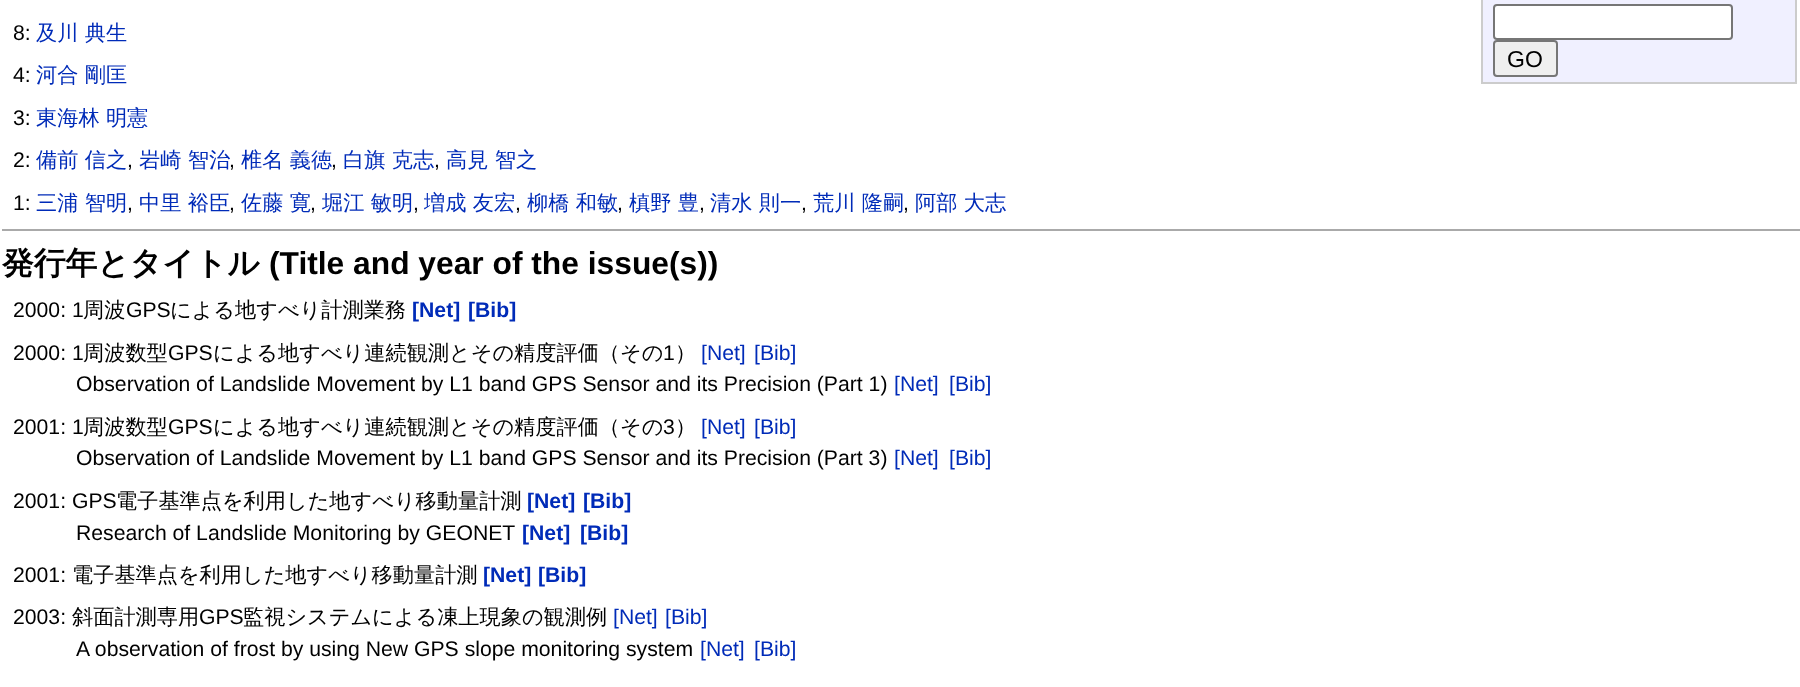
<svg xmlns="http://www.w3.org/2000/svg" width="1800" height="687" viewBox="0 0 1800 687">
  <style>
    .t1 { font: 21.2px Liberation Sans; fill: #000; }
    .t2 { font: 500 21.2px WenQuanYi Zen Hei; fill: #002bb8; }
    .t3 { font: 23px Liberation Sans; fill: #000; }
    .t4 { font: bold 31.75px WenQuanYi Zen Hei; fill: #000; }
    .t5 { font: bold 31.75px Liberation Sans; fill: #000; }
    .t6 { font: 500 21.2px WenQuanYi Zen Hei; fill: #000; }
    .t7 { font: bold 21.2px Liberation Sans; fill: #002bb8; }
    .t8 { font: 21.2px Liberation Sans; fill: #002bb8; }
  </style>
  <rect width="100%" height="100%" fill="#fff"/>
  <text x="13" y="40" class="t1">8:</text>
  <text x="36" y="40" class="t2">及川 典生</text>
  <text x="13" y="82" class="t1">4:</text>
  <text x="36" y="82" class="t2">河合 剛匡</text>
  <text x="13" y="125" class="t1">3:</text>
  <text x="36" y="125" class="t2">東海林 明憲</text>
  <text x="13" y="167" class="t1">2:</text>
  <text x="36" y="167" class="t2">備前 信之</text>
  <text x="127" y="167" class="t1">,</text>
  <text x="139" y="167" class="t2">岩崎 智治</text>
  <text x="229" y="167" class="t1">,</text>
  <text x="241" y="167" class="t2">椎名 義徳</text>
  <text x="331" y="167" class="t1">,</text>
  <text x="343" y="167" class="t2">白旗 克志</text>
  <text x="434" y="167" class="t1">,</text>
  <text x="446" y="167" class="t2">高見 智之</text>
  <text x="13" y="210" class="t1">1:</text>
  <text x="36" y="210" class="t2">三浦 智明</text>
  <text x="127" y="210" class="t1">,</text>
  <text x="139" y="210" class="t2">中里 裕臣</text>
  <text x="229" y="210" class="t1">,</text>
  <text x="241" y="210" class="t2">佐藤 寛</text>
  <text x="310" y="210" class="t1">,</text>
  <text x="322" y="210" class="t2">堀江 敏明</text>
  <text x="413" y="210" class="t1">,</text>
  <text x="424" y="210" class="t2">増成 友宏</text>
  <text x="515" y="210" class="t1">,</text>
  <text x="527" y="210" class="t2">柳橋 和敏</text>
  <text x="617" y="210" class="t1">,</text>
  <text x="629" y="210" class="t2">槙野 豊</text>
  <text x="699" y="210" class="t1">,</text>
  <text x="710" y="210" class="t2">清水 則一</text>
  <text x="801" y="210" class="t1">,</text>
  <text x="813" y="210" class="t2">荒川 隆嗣</text>
  <text x="903" y="210" class="t1">,</text>
  <text x="915" y="210" class="t2">阿部 大志</text>
  <rect x="1482" y="-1" width="314" height="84" fill="#f0f0ff" stroke="#ccc" stroke-width="2"/>
  <rect x="1494" y="5" width="238" height="34" rx="3" fill="#fff" stroke="#767676" stroke-width="2"/>
  <rect x="1494" y="41" width="63" height="35" rx="3" fill="#efefef" stroke="#767676" stroke-width="2"/>
  <text x="1507" y="67" class="t3">GO</text>
  <rect x="2" y="229" width="1798" height="2" fill="#aaa"/>
  <text x="2" y="274" class="t4">発行年とタイトル</text>
  <text x="269" y="274" class="t5">(Title and year of the issue(s))</text>
  <text x="13" y="317" class="t1">2000: 1</text>
  <text x="83" y="317" class="t6">周波</text>
  <text x="126" y="317" class="t1">GPS</text>
  <text x="170" y="317" class="t6">による地すべり計測業務</text>
  <text x="412" y="317" class="t7">[Net]</text>
  <text x="468" y="317" class="t7">[Bib]</text>
  <text x="13" y="360" class="t1">2000: 1</text>
  <text x="83" y="360" class="t6">周波数型</text>
  <text x="168" y="360" class="t1">GPS</text>
  <text x="213" y="360" class="t6">による地すべり連続観測とその精度評価（その</text>
  <text x="663" y="360" class="t1">1</text>
  <text x="675" y="360" class="t6">）</text>
  <text x="701" y="360" class="t8">[Net]</text>
  <text x="754" y="360" class="t8">[Bib]</text>
  <text x="76" y="391" class="t1">Observation of Landslide Movement by L1 band GPS Sensor and its Precision (Part 1)</text>
  <text x="894" y="391" class="t8">[Net]</text>
  <text x="949" y="391" class="t8">[Bib]</text>
  <text x="13" y="434" class="t1">2001: 1</text>
  <text x="83" y="434" class="t6">周波数型</text>
  <text x="168" y="434" class="t1">GPS</text>
  <text x="213" y="434" class="t6">による地すべり連続観測とその精度評価（その</text>
  <text x="663" y="434" class="t1">3</text>
  <text x="675" y="434" class="t6">）</text>
  <text x="701" y="434" class="t8">[Net]</text>
  <text x="754" y="434" class="t8">[Bib]</text>
  <text x="76" y="465" class="t1">Observation of Landslide Movement by L1 band GPS Sensor and its Precision (Part 3)</text>
  <text x="894" y="465" class="t8">[Net]</text>
  <text x="949" y="465" class="t8">[Bib]</text>
  <text x="13" y="508" class="t1">2001: GPS</text>
  <text x="116" y="508" class="t6">電子基準点を利用した地すべり移動量計測</text>
  <text x="527" y="508" class="t7">[Net]</text>
  <text x="583" y="508" class="t7">[Bib]</text>
  <text x="76" y="540" class="t1">Research of Landslide Monitoring by GEONET</text>
  <text x="522" y="540" class="t7">[Net]</text>
  <text x="580" y="540" class="t7">[Bib]</text>
  <text x="13" y="582" class="t1">2001:</text>
  <text x="72" y="582" class="t6">電子基準点を利用した地すべり移動量計測</text>
  <text x="483" y="582" class="t7">[Net]</text>
  <text x="538" y="582" class="t7">[Bib]</text>
  <text x="13" y="624" class="t1">2003:</text>
  <text x="72" y="624" class="t6">斜面計測専用</text>
  <text x="199" y="624" class="t1">GPS</text>
  <text x="243" y="624" class="t6">監視システムによる凍上現象の観測例</text>
  <text x="613" y="624" class="t8">[Net]</text>
  <text x="665" y="624" class="t8">[Bib]</text>
  <text x="76" y="656" class="t1">A observation of frost by using New GPS slope monitoring system</text>
  <text x="700" y="656" class="t8">[Net]</text>
  <text x="754" y="656" class="t8">[Bib]</text>
</svg>
